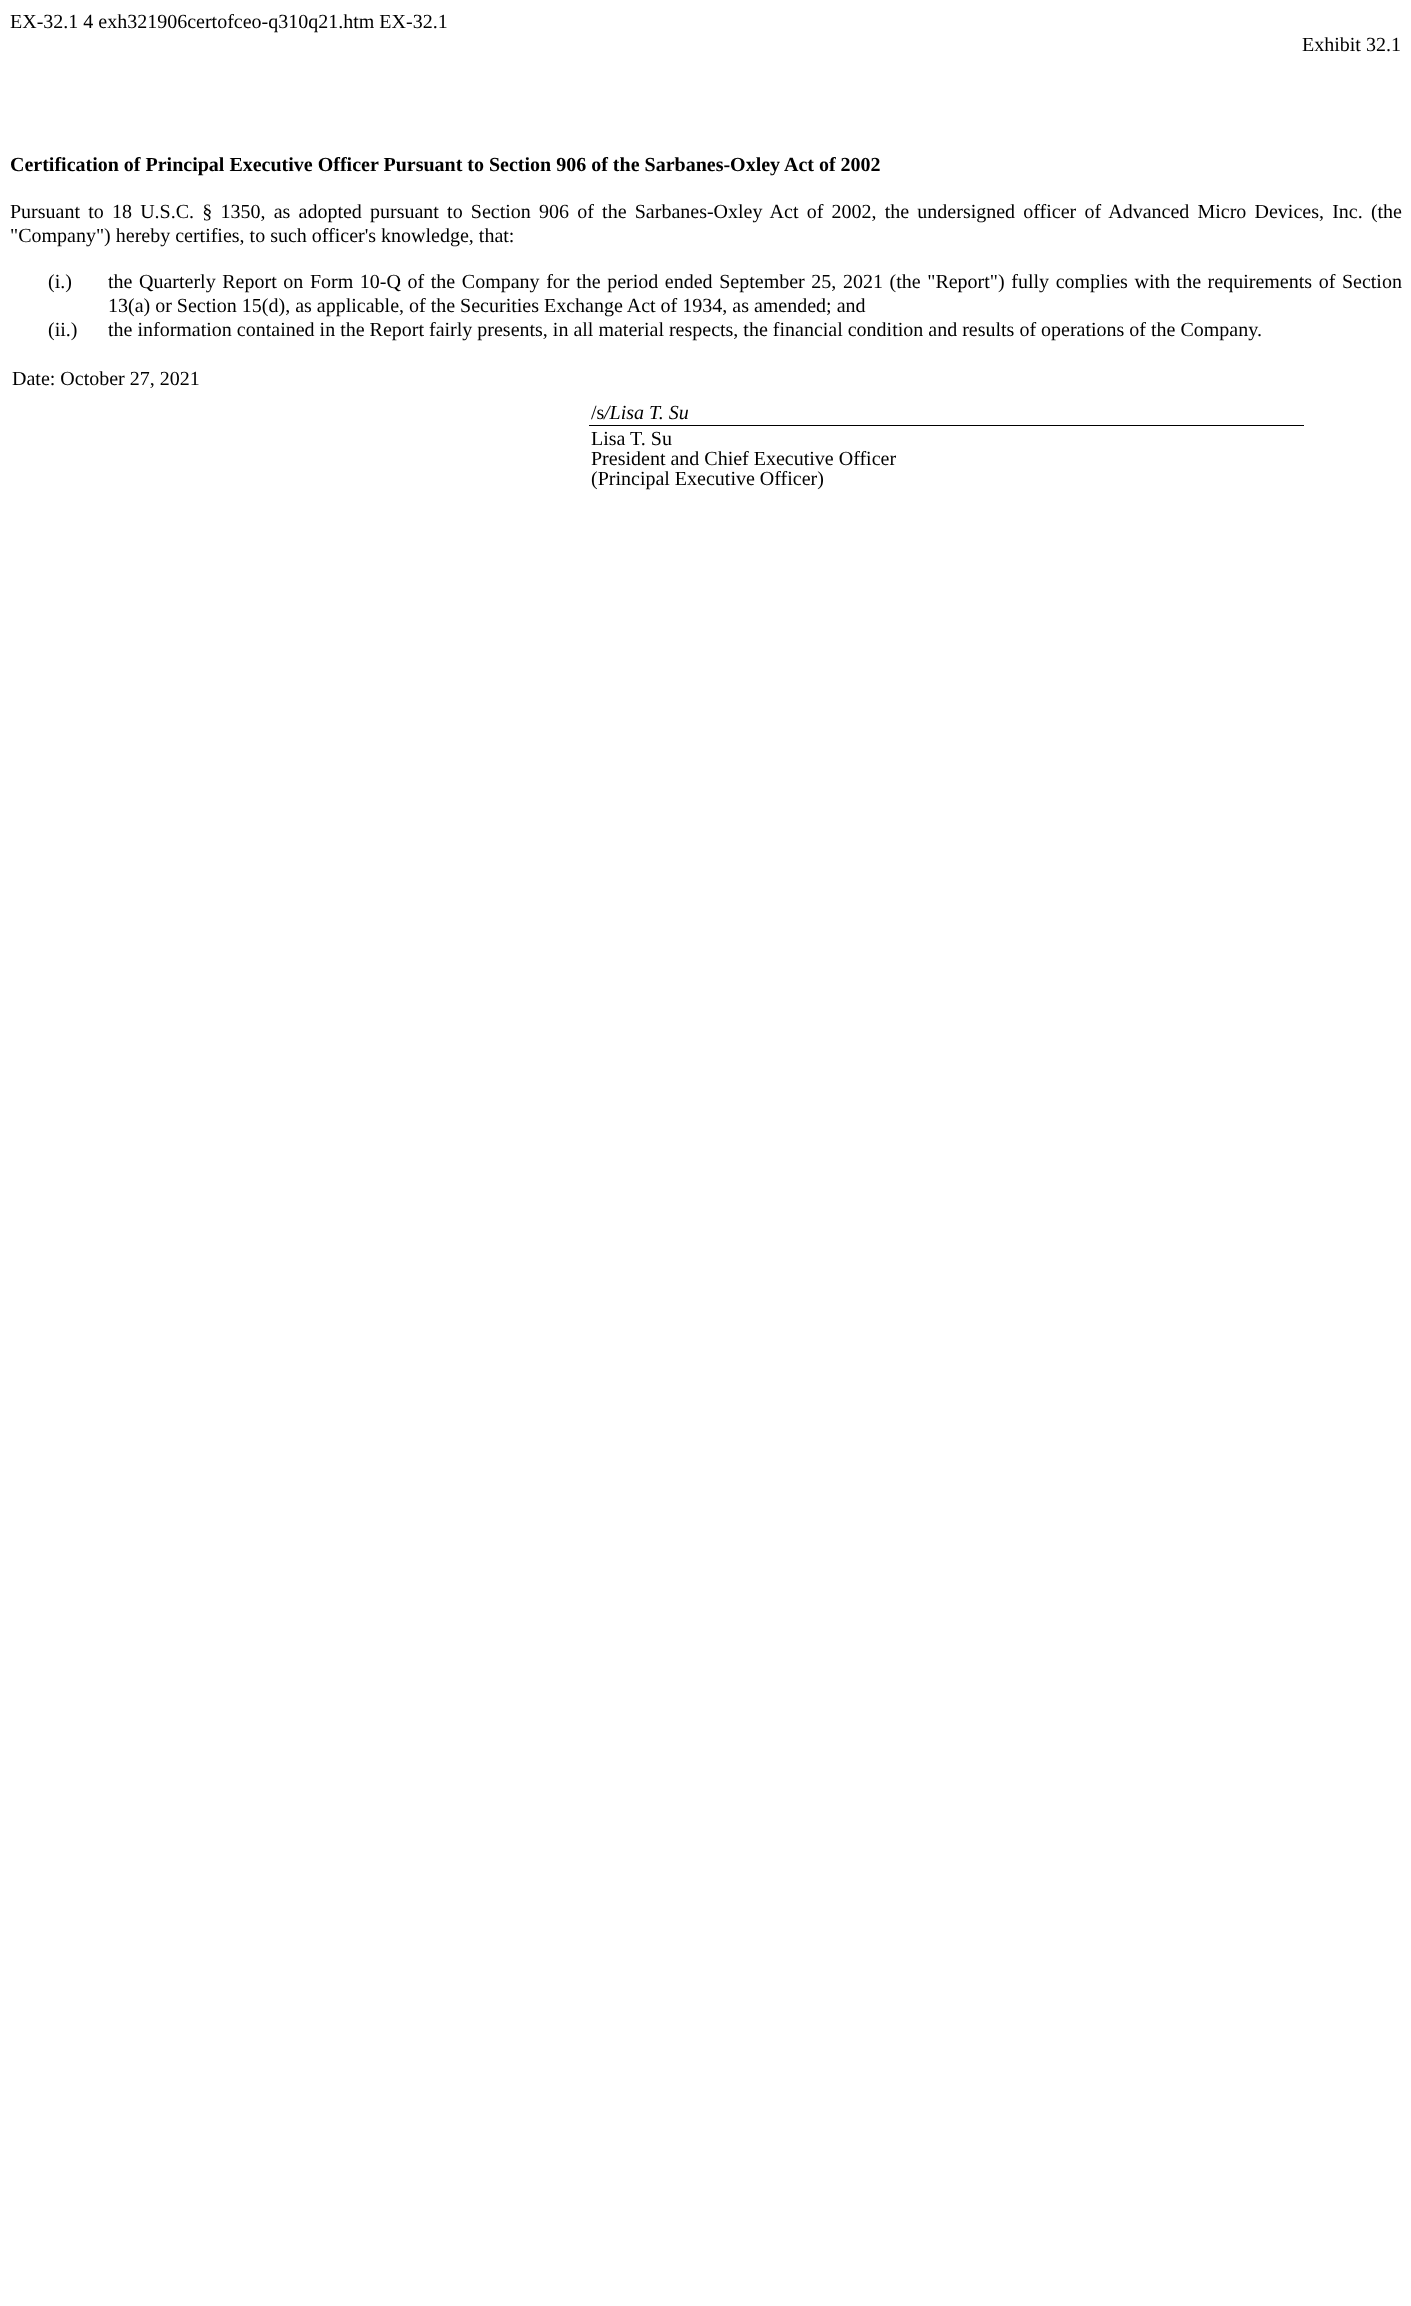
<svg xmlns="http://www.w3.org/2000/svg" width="1411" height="2306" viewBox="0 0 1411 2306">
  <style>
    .t1 { font: 20px Liberation Serif; fill: #000; }
    .t2 { font: bold 20px Liberation Serif; fill: #000; }
    .t3 { font: italic 20px Liberation Serif; fill: #000; }
  </style>
  <rect width="100%" height="100%" fill="#fff"/>
  <text x="10" y="28" class="t1">EX-32.1 4 exh321906certofceo-q310q21.htm EX-32.1</text>
  <text x="1302" y="51" class="t1">Exhibit 32.1</text>
  <text x="10" y="171" class="t2">Certification of Principal Executive Officer Pursuant to Section 906 of the Sarbanes-Oxley Act of 2002</text>
  <text x="10" y="218" word-spacing="3.2" class="t1">Pursuant to 18 U.S.C. § 1350, as adopted pursuant to Section 906 of the Sarbanes-Oxley Act of 2002, the undersigned officer of Advanced Micro Devices, Inc. (the</text>
  <text x="10" y="242" class="t1">"Company") hereby certifies, to such officer's knowledge, that:</text>
  <text x="48" y="288" class="t1">(i.)</text>
  <text x="108" y="288" word-spacing="1.6" class="t1">the Quarterly Report on Form 10-Q of the Company for the period ended September 25, 2021 (the "Report") fully complies with the requirements of Section</text>
  <text x="108" y="312" class="t1">13(a) or Section 15(d), as applicable, of the Securities Exchange Act of 1934, as amended; and</text>
  <text x="48" y="336" class="t1">(ii.)</text>
  <text x="108" y="336" class="t1">the information contained in the Report fairly presents, in all material respects, the financial condition and results of operations of the Company.</text>
  <text x="12" y="385" class="t1">Date: October 27, 2021</text>
  <text x="591" y="419" class="t1">/s</text>
  <text x="604" y="419" class="t3">/Lisa T. Su</text>
  <rect x="589" y="425" width="715" height="1" fill="#000"/>
  <text x="591" y="445" class="t1">Lisa T. Su</text>
  <text x="591" y="465" class="t1">President and Chief Executive Officer</text>
  <text x="591" y="485" class="t1">(Principal Executive Officer)</text>
</svg>
